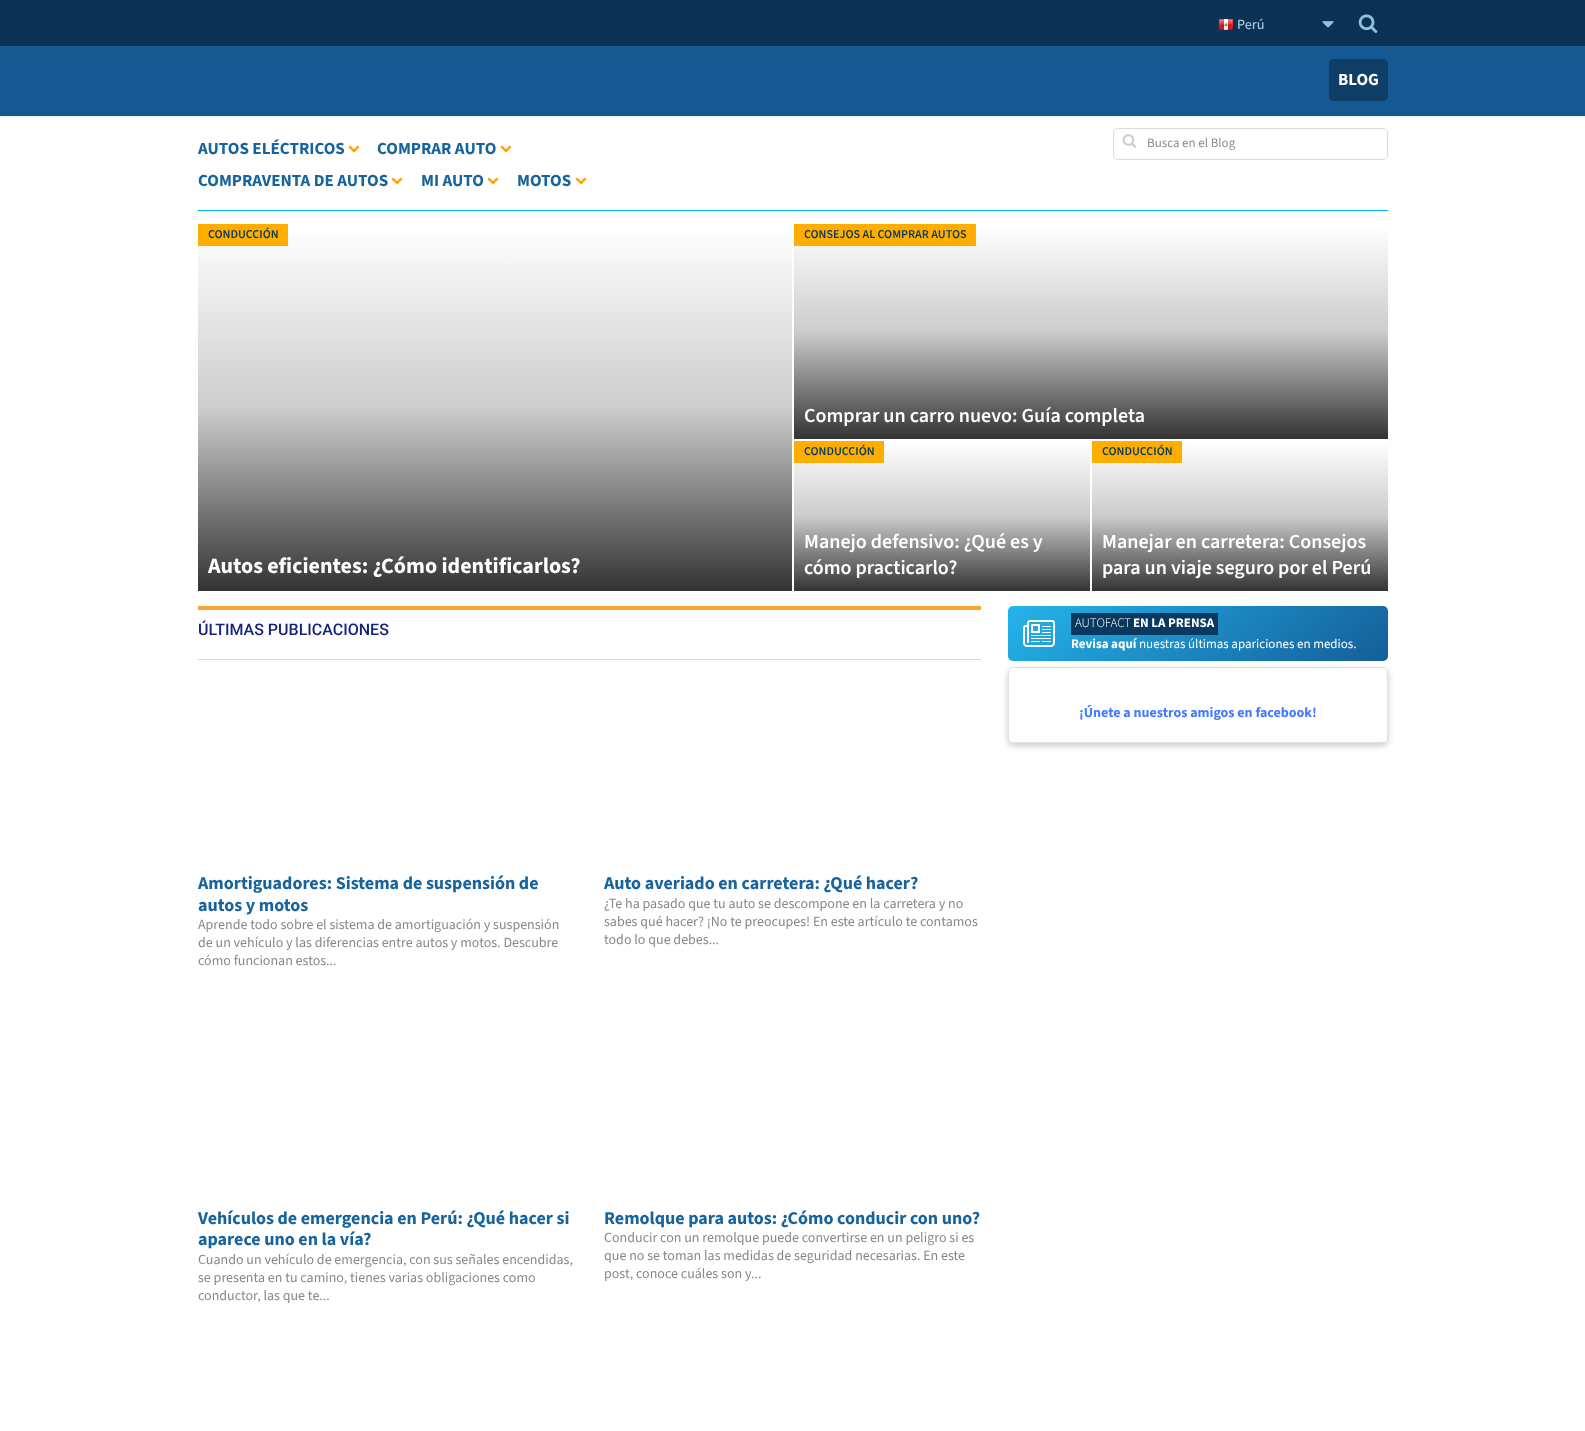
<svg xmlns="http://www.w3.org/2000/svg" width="1585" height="1431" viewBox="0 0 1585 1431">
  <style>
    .t1 { font: 500 14px 'Source Sans 3'; fill: #9ac9da; }
    .t2 { font: bold 17px 'Source Sans 3'; fill: #fff; }
    .t3 { font: bold 17px 'Source Sans 3'; fill: #16639d; }
    .t4 { font: 13px 'Source Sans 3'; fill: #868e96; }
    .t5 { font: 600 12px 'Source Sans 3'; fill: #0a395f; }
    .t6 { font: bold 22px 'Source Sans 3'; fill: #fff; }
    .t7 { font: 600 20px 'Source Sans 3'; fill: #fff; }
    .t8 { font: 500 16px Roboto; fill: #15257a; }
    .t9 { font: bold 18px 'Source Sans 3'; fill: #16639d; }
    .t10 { font: 14px 'Source Sans 3'; fill: #888; }
    .t11 { font: 300 13px 'Source Sans 3'; fill: #fff; }
    .t12 { font: bold 13px 'Source Sans 3'; fill: #fff; }
    .t13 { font: 13px 'Source Sans 3'; fill: #fff; }
    .t14 { font: bold 14px 'Source Sans 3'; fill: #437cff; }
  </style>
  <defs>
    <linearGradient id="g1" gradientUnits="userSpaceOnUse" x1="495" y1="224" x2="495" y2="591"><stop offset="0" stop-color="#fff"/><stop offset="0.5" stop-color="#cdcdcd"/><stop offset="1" stop-color="#333"/></linearGradient>
    <linearGradient id="g2" gradientUnits="userSpaceOnUse" x1="1091" y1="224" x2="1091" y2="439"><stop offset="0" stop-color="#fff"/><stop offset="0.5" stop-color="#ccc"/><stop offset="1" stop-color="#333"/></linearGradient>
    <linearGradient id="g3" gradientUnits="userSpaceOnUse" x1="942" y1="441" x2="942" y2="591"><stop offset="0" stop-color="#fff"/><stop offset="0.5" stop-color="#ccc"/><stop offset="1" stop-color="#333"/></linearGradient>
    <linearGradient id="g4" gradientUnits="userSpaceOnUse" x1="1240" y1="441" x2="1240" y2="591"><stop offset="0" stop-color="#fff"/><stop offset="0.5" stop-color="#ccc"/><stop offset="1" stop-color="#333"/></linearGradient>
    <linearGradient id="g5" gradientUnits="userSpaceOnUse" x1="1109" y1="524" x2="1287" y2="743"><stop offset="0" stop-color="#24b4ec"/><stop offset="1" stop-color="#145e98"/></linearGradient>
    <clipPath id="clip1"><path d="M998 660H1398V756H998ZM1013 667H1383C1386 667 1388 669 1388 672V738C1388 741 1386 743 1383 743H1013C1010 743 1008 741 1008 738V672C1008 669 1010 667 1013 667Z" clip-rule="evenodd"/></clipPath>
  </defs>
  <rect width="100%" height="100%" fill="#fff"/>
  <rect x="0" y="46" width="1585" height="70" fill="#155892"/>
  <rect x="0" y="0" width="1585" height="46" fill="#0b3254"/>
  <image x="1219" y="19" width="14" height="11" href="images/1.png"/>
  <text x="1237" y="29" class="t1">Perú</text>
  <image x="1322" y="21" width="12" height="7" href="images/2.png"/>
  <image x="1358" y="14" width="20" height="19" href="images/3.png"/>
  <rect x="0" y="116" width="1585" height="1" fill="#e5ebf1"/>
  <rect x="1329" y="59" width="59" height="42" rx="5" fill="#0f3e66"/>
  <text x="1338" y="85" class="t2">BLOG</text>
  <text x="198" y="154" class="t3">AUTOS ELÉCTRICOS</text>
  <image x="348" y="145" width="12" height="8" href="images/4.png"/>
  <text x="377" y="154" class="t3">COMPRAR AUTO</text>
  <image x="500" y="145" width="12" height="8" href="images/4.png"/>
  <text x="198" y="186" class="t3">COMPRAVENTA DE AUTOS</text>
  <image x="391" y="177" width="12" height="8" href="images/4.png"/>
  <text x="421" y="186" class="t3">MI AUTO</text>
  <image x="487" y="177" width="12" height="8" href="images/4.png"/>
  <text x="517" y="186" class="t3">MOTOS</text>
  <image x="575" y="177" width="12" height="8" href="images/4.png"/>
  <rect x="1113.5" y="128.5" width="274" height="31" rx="4.5" fill="none" stroke="#d5dadf"/>
  <image x="1122" y="134" width="15" height="14" href="images/5.png"/>
  <path d="M1137 129H1383C1385 129 1387 131 1387 133V155C1387 157 1385 159 1383 159H1137Z" fill="#fff"/>
  <text x="1147" y="147" class="t4">Busca en el Blog</text>
  <rect x="198" y="210" width="1190" height="1" fill="#00b8ea"/>
  <rect x="198" y="233" width="594" height="358" fill="url(#g1)"/>
  <rect x="198" y="224" width="90" height="22" fill="#ffae00"/>
  <text x="208" y="238" class="t5">CONDUCCIÓN</text>
  <text x="208" y="573" class="t6">Autos eficientes: ¿Cómo identificarlos?</text>
  <rect x="794" y="229" width="594" height="210" fill="url(#g2)"/>
  <rect x="794" y="224" width="182" height="22" fill="#ffae00"/>
  <text x="804" y="238" class="t5">CONSEJOS AL COMPRAR AUTOS</text>
  <text x="804" y="422" class="t7">Comprar un carro nuevo: Guía completa</text>
  <rect x="794" y="445" width="296" height="146" fill="url(#g3)"/>
  <rect x="794" y="441" width="90" height="22" fill="#ffae00"/>
  <text x="804" y="455" class="t5">CONDUCCIÓN</text>
  <text x="804" y="548" class="t7">Manejo defensivo: ¿Qué es y</text>
  <text x="804" y="574" class="t7">cómo practicarlo?</text>
  <rect x="1092" y="445" width="296" height="146" fill="url(#g4)"/>
  <rect x="1092" y="441" width="90" height="22" fill="#ffae00"/>
  <text x="1102" y="455" class="t5">CONDUCCIÓN</text>
  <text x="1102" y="548" class="t7">Manejar en carretera: Consejos</text>
  <text x="1102" y="574" class="t7">para un viaje seguro por el Perú</text>
  <rect x="198" y="606" width="783" height="4" fill="#ffa238"/>
  <text x="198" y="635" class="t8">ÚLTIMAS PUBLICACIONES</text>
  <rect x="198" y="659" width="783" height="1" fill="#d5dadf"/>
  <text x="198" y="889" class="t9">Amortiguadores: Sistema de suspensión de</text>
  <text x="198" y="911" class="t9">autos y motos</text>
  <text x="198" y="929" class="t10">Aprende todo sobre el sistema de amortiguación y suspensión</text>
  <text x="198" y="947" class="t10">de un vehículo y las diferencias entre autos y motos. Descubre</text>
  <text x="198" y="965" class="t10">cómo funcionan estos...</text>
  <text x="604" y="889" class="t9">Auto averiado en carretera: ¿Qué hacer?</text>
  <text x="604" y="908" class="t10">¿Te ha pasado que tu auto se descompone en la carretera y no</text>
  <text x="604" y="926" class="t10">sabes qué hacer? ¡No te preocupes! En este artículo te contamos</text>
  <text x="604" y="944" class="t10">todo lo que debes...</text>
  <text x="198" y="1224" class="t9">Vehículos de emergencia en Perú: ¿Qué hacer si</text>
  <text x="198" y="1245" class="t9">aparece uno en la vía?</text>
  <text x="198" y="1264" class="t10">Cuando un vehículo de emergencia, con sus señales encendidas,</text>
  <text x="198" y="1282" class="t10">se presenta en tu camino, tienes varias obligaciones como</text>
  <text x="198" y="1300" class="t10">conductor, las que te...</text>
  <text x="604" y="1224" class="t9">Remolque para autos: ¿Cómo conducir con uno?</text>
  <text x="604" y="1242" class="t10">Conducir con un remolque puede convertirse en un peligro si es</text>
  <text x="604" y="1260" class="t10">que no se toman las medidas de seguridad necesarias. En este</text>
  <text x="604" y="1278" class="t10">post, conoce cuáles son y...</text>
  <rect x="1008" y="606" width="380" height="55" rx="5" fill="url(#g5)"/>
  <image x="1023" y="620" width="32" height="27" href="images/6.png"/>
  <rect x="1071" y="613" width="147" height="22" fill="#0a395f"/>
  <text x="1075" y="627" class="t11">AUTOFACT</text>
  <text x="1133" y="627" class="t12">EN LA PRENSA</text>
  <text x="1071" y="648" class="t12">Revisa aquí</text>
  <text x="1139" y="648" class="t13">nuestras últimas apariciones en medios.</text>
  <g clip-path="url(#clip1)">
    <rect x="1008" y="670" width="380" height="76" rx="5" fill="#00000033" filter="blur(3px)"/>
  </g>
  <rect x="1008.5" y="667.5" width="379" height="75" rx="4.5" fill="none" stroke="#0000001f"/>
  <text x="1079" y="717" class="t14">¡Únete a nuestros amigos en facebook!</text>
</svg>
